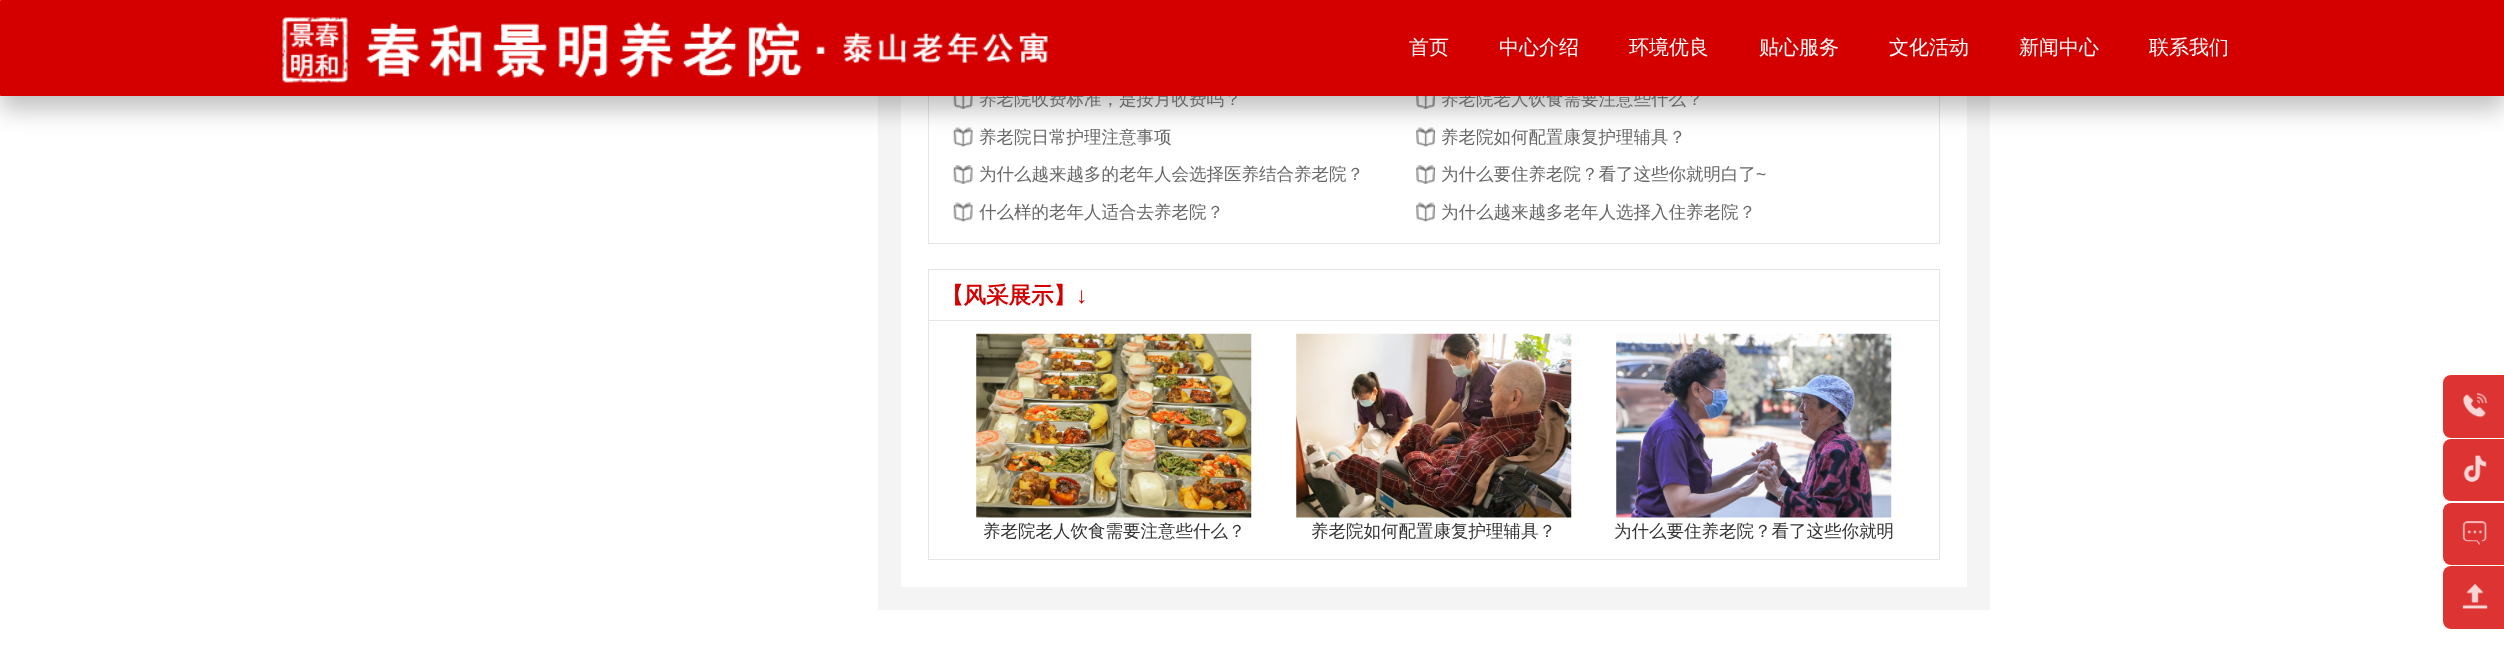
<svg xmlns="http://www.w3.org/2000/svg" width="2504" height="646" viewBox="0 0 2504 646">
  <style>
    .t1 { font: 500 17.5px WenQuanYi Zen Hei; fill: #676767; }
    .t2 { font: 500 20px WenQuanYi Zen Hei; fill: #fff; }
    .t3 { font: 17.5px Liberation Sans; fill: #676767; }
    .t4 { font: bold 22.5px WenQuanYi Zen Hei; fill: #d40000; }
    .t5 { font: bold 22.5px Liberation Sans; fill: #d40000; }
    .t6 { font: 500 17.5px WenQuanYi Zen Hei; fill: #333; }
  </style>
  <rect width="100%" height="100%" fill="#fff"/>
  <rect x="889.5" y="-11.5" width="1089" height="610" fill="none" stroke="#f4f4f4" stroke-width="23"/>
  <rect x="928.5" y="-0.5" width="1011" height="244" fill="none" stroke="#e5e5e5"/>
  <image x="953" y="96" width="20" height="13" href="images/2.png"/>
  <image x="1416" y="96" width="19" height="13" href="images/3.png"/>
  <image x="953" y="127" width="20" height="20" href="images/4.png"/>
  <image x="1416" y="127" width="19" height="20" href="images/5.png"/>
  <rect x="0" y="13" width="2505" height="96" rx="1" fill="#00000040" filter="blur(12.5px)"/>
  <text x="979" y="105" class="t1">养老院收费标准，是按月收费吗？</text>
  <text x="1441" y="105" class="t1">养老院老人饮食需要注意些什么？</text>
  <rect x="0" y="0" width="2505" height="96" rx="1" fill="#d40000"/>
  <image x="282" y="17" width="766" height="66" href="images/1.png"/>
  <text x="1409" y="54" class="t2">首页</text>
  <text x="1499" y="54" class="t2">中心介绍</text>
  <text x="1629" y="54" class="t2">环境优良</text>
  <text x="1759" y="54" class="t2">贴心服务</text>
  <text x="1889" y="54" class="t2">文化活动</text>
  <text x="2019" y="54" class="t2">新闻中心</text>
  <text x="2149" y="54" class="t2">联系我们</text>
  <text x="979" y="143" class="t1">养老院日常护理注意事项</text>
  <text x="1441" y="143" class="t1">养老院如何配置康复护理辅具？</text>
  <image x="953" y="165" width="20" height="19" href="images/6.png"/>
  <text x="979" y="180" class="t1">为什么越来越多的老年人会选择医养结合养老院？</text>
  <image x="1416" y="165" width="19" height="19" href="images/7.png"/>
  <text x="1441" y="180" class="t1">为什么要住养老院？看了这些你就明白了</text>
  <text x="1756" y="180" class="t3">~</text>
  <image x="953" y="202" width="20" height="20" href="images/8.png"/>
  <text x="979" y="218" class="t1">什么样的老年人适合去养老院？</text>
  <image x="1416" y="202" width="19" height="20" href="images/9.png"/>
  <text x="1441" y="218" class="t1">为什么越来越多老年人选择入住养老院？</text>
  <rect x="928.5" y="269.5" width="1011" height="290" fill="none" stroke="#e5e5e5"/>
  <rect x="929" y="320" width="1010" height="1" fill="#e5e5e5"/>
  <text x="941" y="303" class="t4">【风采展示】</text>
  <text x="1076" y="303" class="t5">↓</text>
  <image x="976" y="333" width="276" height="185" href="images/10.png"/>
  <text x="983" y="537" class="t6">养老院老人饮食需要注意些什么？</text>
  <image x="1296" y="333" width="276" height="185" href="images/11.png"/>
  <text x="1311" y="537" class="t6">养老院如何配置康复护理辅具？</text>
  <image x="1616" y="333" width="276" height="185" href="images/12.png"/>
  <text x="1614" y="537" class="t6">为什么要住养老院？看了这些你就明</text>
  <rect x="2443" y="375" width="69" height="63" rx="8" fill="#d33"/>
  <image x="2462" y="392" width="26" height="26" href="images/13.png"/>
  <rect x="2443" y="439" width="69" height="62" rx="8" fill="#d33"/>
  <image x="2463" y="455" width="24" height="27" href="images/14.png"/>
  <rect x="2443" y="503" width="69" height="62" rx="8" fill="#d33"/>
  <image x="2462" y="521" width="25" height="24" href="images/15.png"/>
  <rect x="2443" y="566" width="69" height="63" rx="8" fill="#d33"/>
  <image x="2462" y="584" width="26" height="25" href="images/16.png"/>
</svg>
